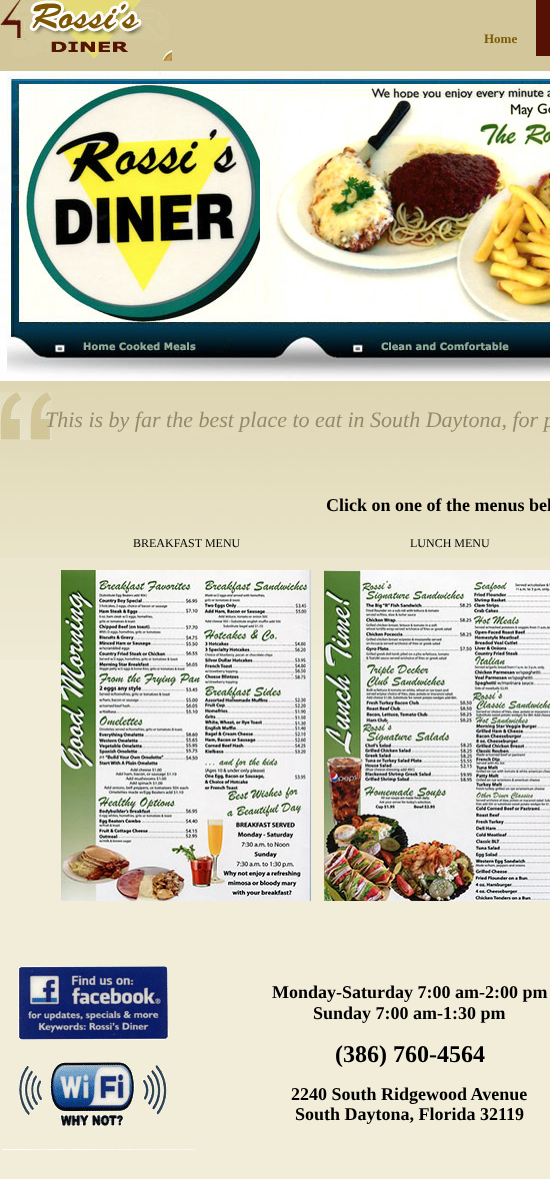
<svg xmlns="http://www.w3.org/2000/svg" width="550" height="1179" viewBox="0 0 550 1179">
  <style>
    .t1 { font: bold 13px Liberation Serif; fill: #7b5b05; }
    .t2 { font: italic 22px Liberation Serif; fill: #938b6b; }
    .t3 { font: bold 18px Liberation Serif; fill: #000; }
    .t4 { font: 12px Liberation Serif; fill: #000; }
    .t5 { font: bold 24px Liberation Serif; fill: #000; }
  </style>
  <rect width="100%" height="100%" fill="#f2edd9"/>
  <image x="0" y="0" width="550" height="660" href="images/1.png"/>
  <image x="0" y="381" width="550" height="177" href="images/2.png"/>
  <image x="0" y="67" width="550" height="314" href="images/3.png"/>
  <image x="0" y="0" width="172" height="61" href="images/4.png"/>
  <text x="484" y="43" class="t1">Home</text>
  <rect x="536" y="0" width="14" height="56" fill="#571104"/>
  <image x="0" y="392" width="52" height="48" href="images/5.png"/>
  <text x="45" y="427" class="t2">This is by far the best place to eat in South Daytona, for p</text>
  <text x="326" y="511" class="t3">Click on one of the menus bel</text>
  <text x="133" y="547" class="t4">BREAKFAST MENU</text>
  <text x="410" y="547" class="t4">LUNCH MENU</text>
  <image x="61" y="570" width="250" height="331" href="images/6.png"/>
  <image x="324" y="570" width="226" height="331" href="images/7.png"/>
  <image x="2" y="966" width="193" height="184" href="images/8.png"/>
  <text x="272" y="998" class="t3">Monday-Saturday 7:00 am-2:00 pm</text>
  <text x="313" y="1019" class="t3">Sunday 7:00 am-1:30 pm</text>
  <text x="335" y="1062" class="t5">(386) 760-4564</text>
  <text x="291" y="1100" class="t3">2240 South Ridgewood Avenue</text>
  <text x="295" y="1120" class="t3">South Daytona, Florida 32119</text>
</svg>
